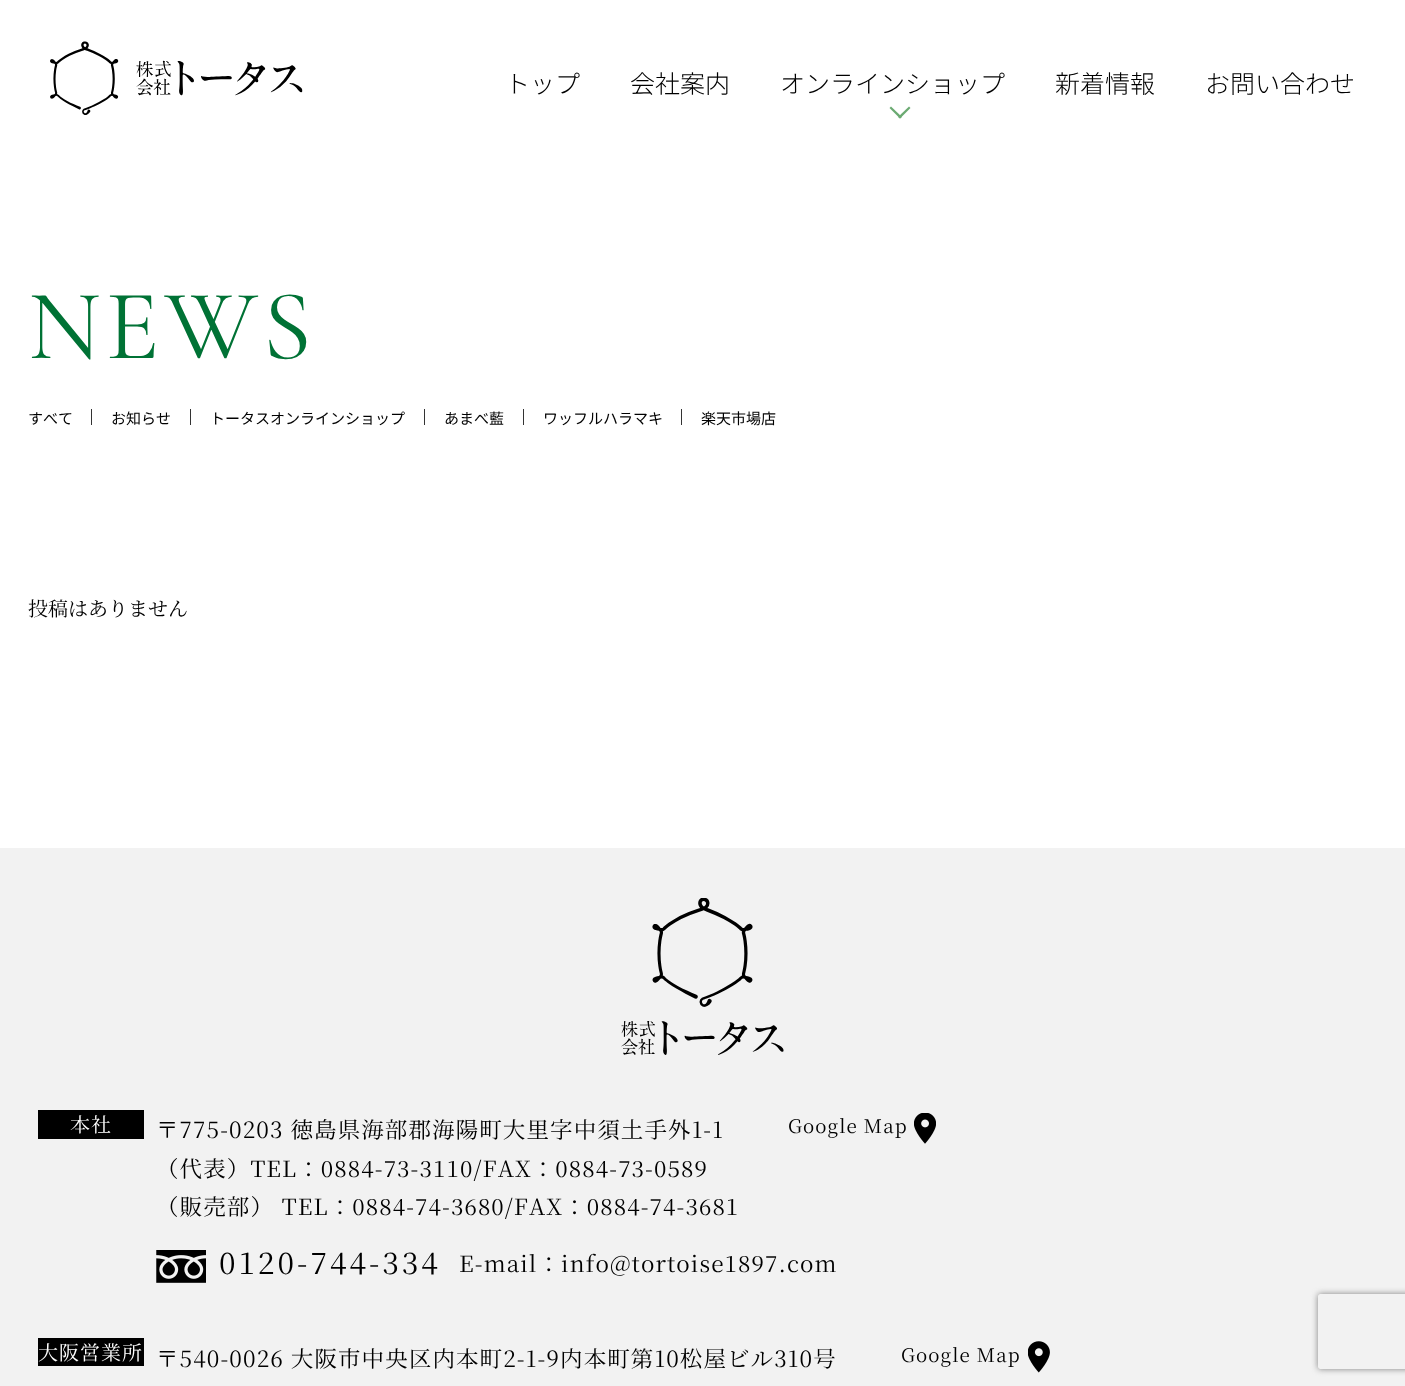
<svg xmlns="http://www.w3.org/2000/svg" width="1405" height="1386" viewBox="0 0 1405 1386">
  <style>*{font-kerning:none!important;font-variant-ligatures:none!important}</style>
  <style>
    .t1 { font: 300 25px Noto Sans JP; fill: #000; }
    .t2 { font: 300 100px Cormorant Garamond; letter-spacing: 5px; fill: #007235; }
    .t3 { font: 15px Noto Sans JP; fill: #000; }
    .t4 { font: 20px Noto Serif JP; fill: #000; }
    .t5 { font: 20px Noto Serif JP; letter-spacing: 1px; fill: #fff; }
    .t6 { font: 22.5px Noto Serif JP; letter-spacing: 1.1px; fill: #000; }
    .t7 { font: 18.75px Noto Serif JP; letter-spacing: 1.1px; fill: #000; }
    .t8 { font: 30px Noto Serif JP; letter-spacing: 3px; fill: #000; }
  </style>
  <defs>
    <clipPath id="clip1"><path d="M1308 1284H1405V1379H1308ZM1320.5 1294H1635.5C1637 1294 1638 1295 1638 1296.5V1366.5C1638 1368 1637 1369 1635.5 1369H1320.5C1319 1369 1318 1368 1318 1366.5V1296.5C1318 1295 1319 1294 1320.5 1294Z" clip-rule="evenodd"/></clipPath>
  </defs>
  <rect width="100%" height="100%" fill="#fff"/>
  <image x="50" y="41" width="253" height="74" href="images/1.png"/>
  <text x="505" y="93" class="t1">トップ</text>
  <text x="630" y="93" class="t1">会社案内</text>
  <text x="780" y="93" class="t1">オンラインショップ</text>
  <path d="M910.5 108L900 118.5L898 117L909 106.5Z" fill="#6baa72"/>
  <path d="M902 117L900 118.5L889.5 108L891 106.5Z" fill="#6baa72"/>
  <text x="1055" y="93" class="t1">新着情報</text>
  <text x="1205" y="93" class="t1">お問い合わせ</text>
  <text x="28" y="358" class="t2">NEWS</text>
  <rect x="91" y="409" width="1" height="16" fill="#333"/>
  <text x="28" y="424" class="t3">すべて</text>
  <rect x="190" y="409" width="1" height="16" fill="#333"/>
  <text x="111" y="424" class="t3">お知らせ</text>
  <rect x="424" y="409" width="1" height="16" fill="#333"/>
  <text x="210" y="424" class="t3">トータスオンラインショップ</text>
  <rect x="523" y="409" width="1" height="16" fill="#333"/>
  <text x="444" y="424" class="t3">あまべ藍</text>
  <rect x="681" y="409" width="1" height="16" fill="#333"/>
  <text x="543" y="424" class="t3">ワッフルハラマキ</text>
  <text x="701" y="424" class="t3">楽天市場店</text>
  <text x="28" y="616" class="t4">投稿はありません</text>
  <rect x="0" y="848" width="1405" height="538" fill="#f2f2f2"/>
  <image x="621" y="898" width="163" height="157" href="images/2.png"/>
  <rect x="38" y="1110" width="106" height="29" fill="#000"/>
  <text x="70" y="1132" class="t5">本社</text>
  <text x="156" y="1138" class="t6">〒775-0203 徳島県海部郡海陽町大里字中須土手外1-1</text>
  <text x="788" y="1133" class="t7">Google Map</text>
  <image x="914" y="1113" width="22" height="31" href="images/3.png"/>
  <text x="156" y="1177" class="t6">（代表）TEL：0884-73-3110/FAX：0884-73-0589</text>
  <text x="156" y="1215" word-spacing="1" class="t6">（販売部） TEL：0884-74-3680/FAX：0884-74-3681</text>
  <image x="156" y="1250" width="50" height="33" href="images/4.png"/>
  <text x="219" y="1274" class="t8">0120-744-334</text>
  <text x="459" y="1272" class="t6">E-mail：info@tortoise1897.com</text>
  <rect x="38" y="1338" width="106" height="28" fill="#000"/>
  <text x="38" y="1360" class="t5">大阪営業所</text>
  <text x="156" y="1367" class="t6">〒540-0026 大阪市中央区内本町2-1-9内本町第10松屋ビル310号</text>
  <text x="901" y="1362" class="t7">Google Map</text>
  <image x="1028" y="1341" width="22" height="32" href="images/5.png"/>
  <g clip-path="url(#clip1)">
    <rect x="1318" y="1294" width="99" height="75" rx="2.5" fill="#808080" filter="blur(3px)"/>
  </g>
</svg>
